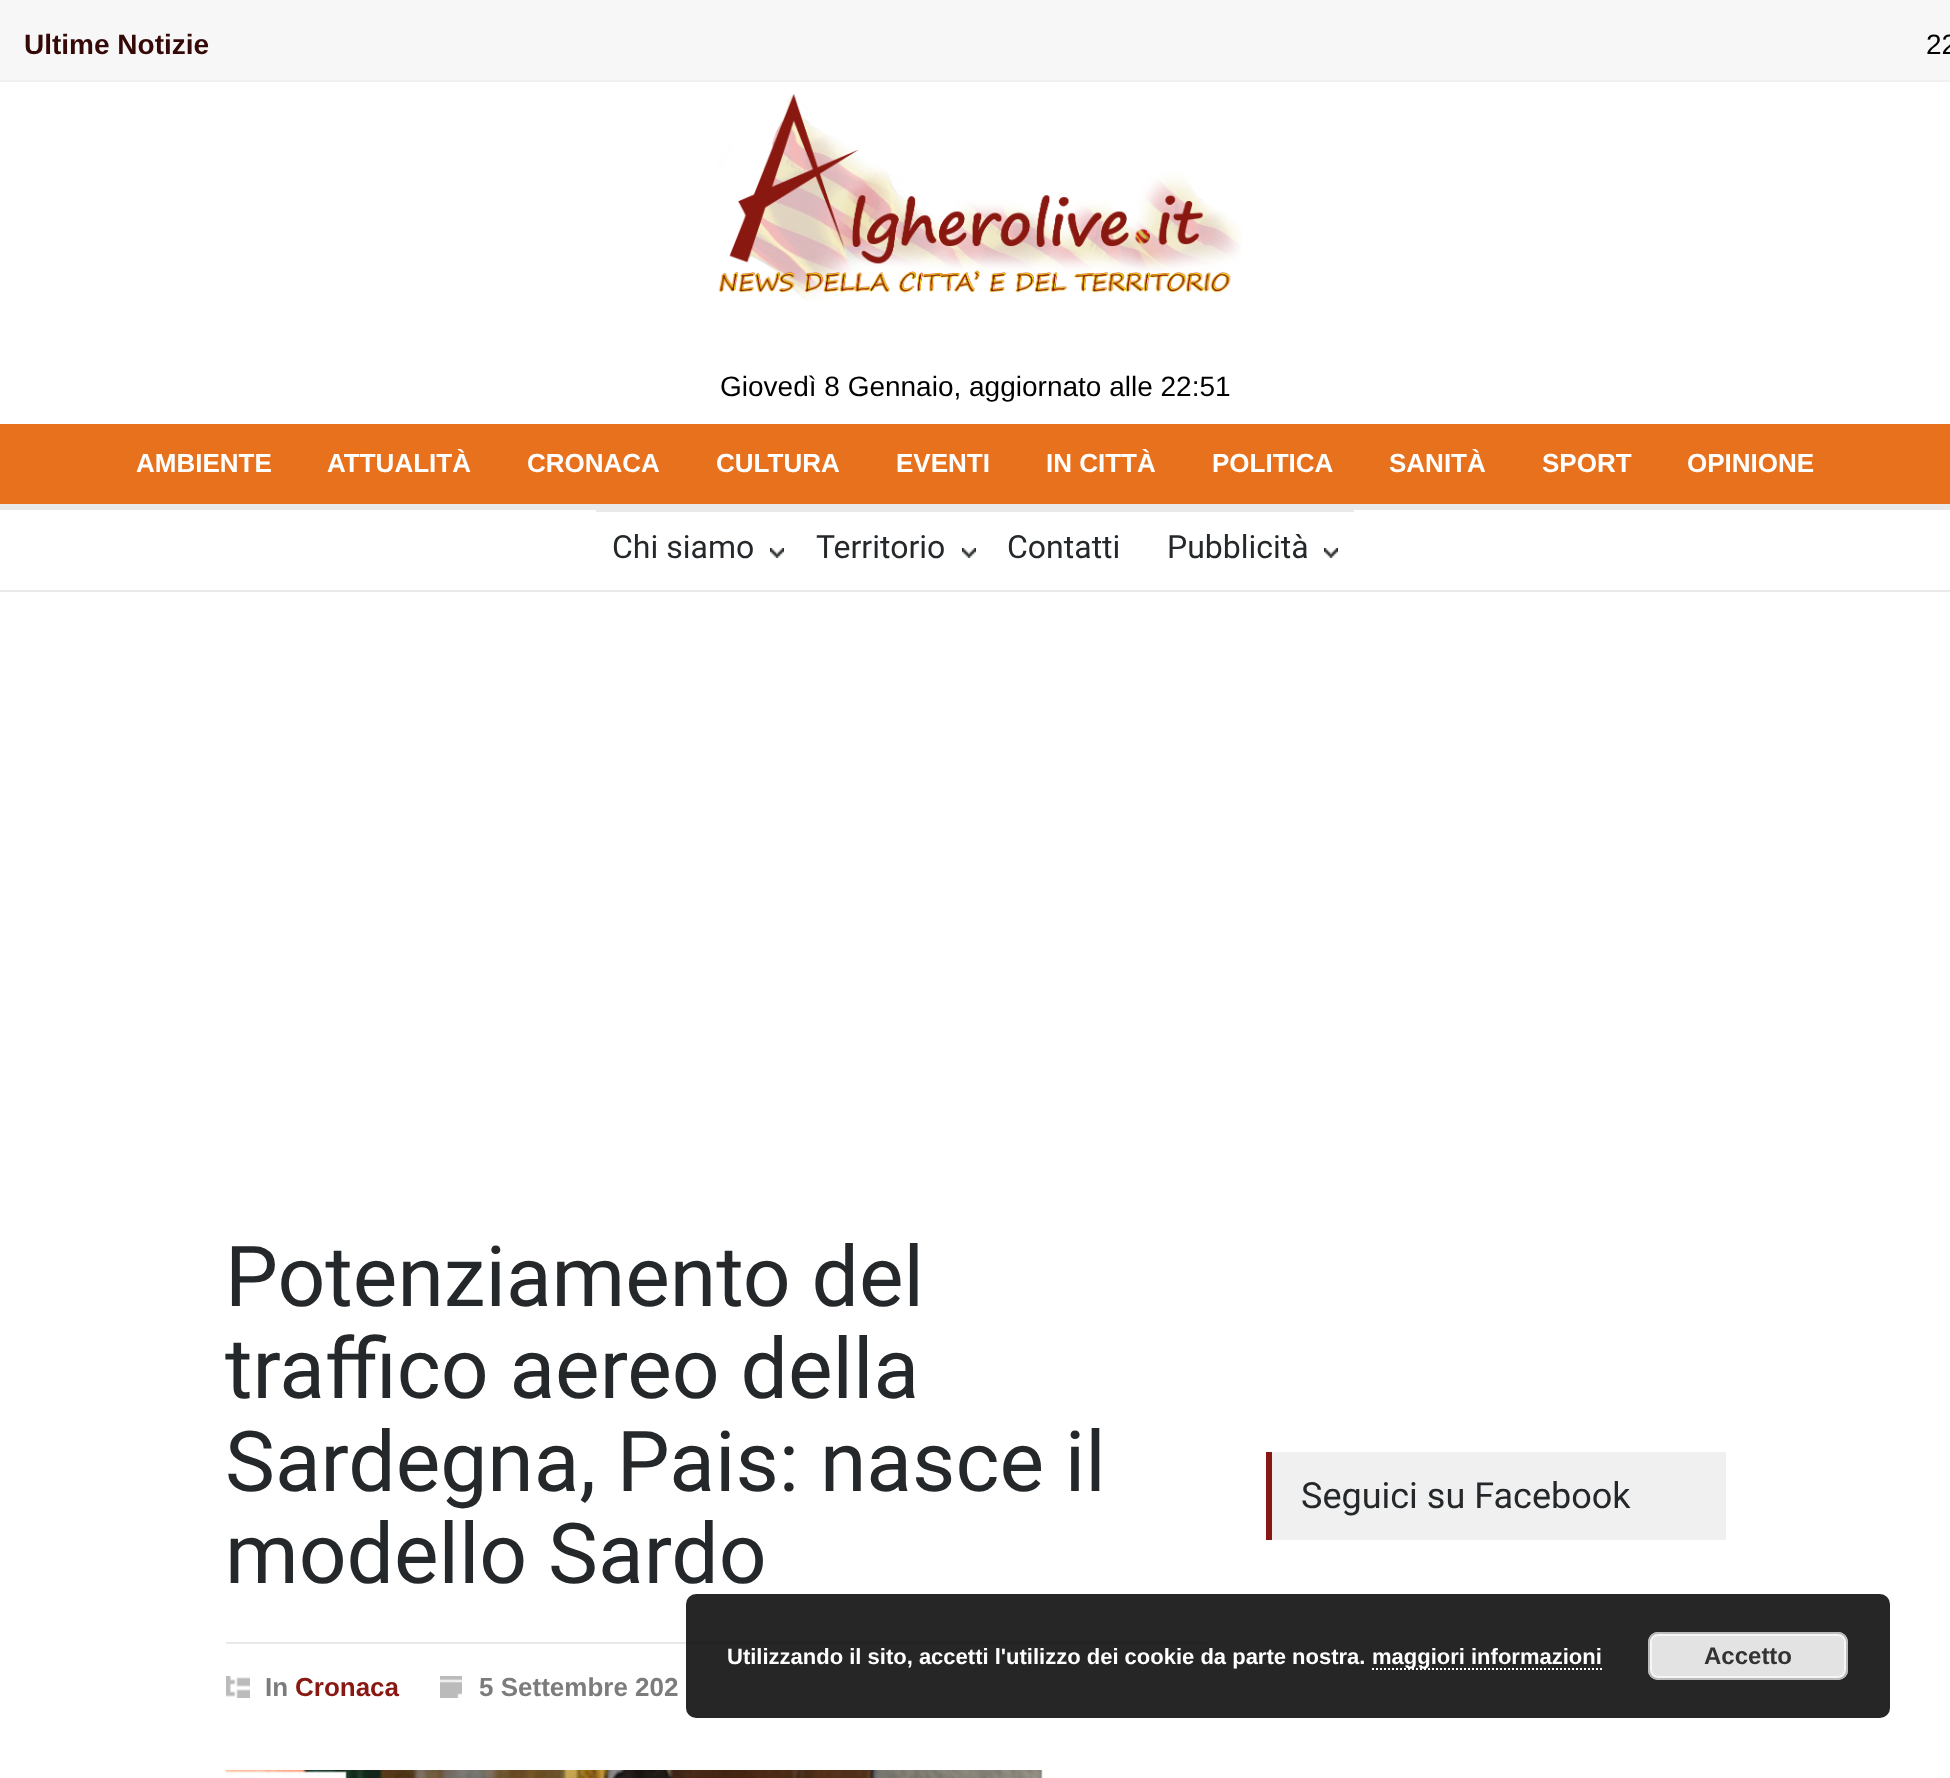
<svg xmlns="http://www.w3.org/2000/svg" width="1950" height="1778" viewBox="0 0 1950 1778">
  <style>
    .t1 { font: bold 28px Liberation Sans; fill: #340907; }
    .t2 { font: 28px Liberation Sans; fill: #000; }
    .t3 { font: bold 26px Liberation Sans; fill: #fff; }
    .t4 { font: 32px Roboto; fill: #25282a; }
    .t5 { font: 84px Roboto; fill: #25282a; }
    .t6 { font: bold 26px Liberation Sans; fill: #7c7c7c; }
    .t7 { font: bold 26px Liberation Sans; fill: #891812; }
    .t8 { font: 36px Roboto; fill: #25282a; }
    .t9 { font: bold 22px Liberation Sans; fill: #fff; }
    .t10 { font: bold 24px Liberation Sans; fill: #333; }
  </style>
  <rect width="100%" height="100%" fill="#fff"/>
  <rect x="0" y="0" width="1950" height="80" fill="#f7f7f7"/>
  <rect x="0" y="80" width="1950" height="2" fill="#f0f0f0"/>
  <text x="24" y="54" class="t1">Ultime Notizie</text>
  <text x="1926" y="54" class="t2">22</text>
  <image x="718" y="93" width="524" height="208" href="images/1.png"/>
  <text x="720" y="396" class="t2">Giovedì 8 Gennaio, aggiornato alle 22:51</text>
  <rect x="0" y="424" width="1950" height="80" fill="#e8711d"/>
  <text x="136" y="472" class="t3">AMBIENTE</text>
  <text x="327" y="472" class="t3">ATTUALITÀ</text>
  <text x="527" y="472" class="t3">CRONACA</text>
  <text x="716" y="472" class="t3">CULTURA</text>
  <text x="896" y="472" class="t3">EVENTI</text>
  <text x="1046" y="472" class="t3">IN CITTÀ</text>
  <text x="1212" y="472" class="t3">POLITICA</text>
  <text x="1389" y="472" class="t3">SANITÀ</text>
  <text x="1542" y="472" class="t3">SPORT</text>
  <text x="1687" y="472" class="t3">OPINIONE</text>
  <rect x="0" y="504" width="1950" height="6" fill="#e9e9e9"/>
  <rect x="0" y="590" width="1950" height="2" fill="#e9e9e9"/>
  <rect x="596" y="510" width="758" height="2" fill="#e9e9e9"/>
  <image x="770" y="548" width="14" height="10" href="images/2.png"/>
  <text x="612" y="558" class="t4">Chi siamo</text>
  <image x="962" y="548" width="14" height="10" href="images/2.png"/>
  <text x="816" y="558" class="t4">Territorio</text>
  <text x="1007" y="558" class="t4">Contatti</text>
  <image x="1324" y="548" width="14" height="10" href="images/2.png"/>
  <text x="1167" y="558" class="t4">Pubblicità</text>
  <text x="225" y="1306" class="t5">Potenziamento del</text>
  <text x="225" y="1398" class="t5">traffico aereo della</text>
  <text x="225" y="1491" class="t5">Sardegna, Pais: nasce il</text>
  <text x="225" y="1583" class="t5">modello Sardo</text>
  <rect x="226" y="1642" width="980" height="2" fill="#e9e9e9"/>
  <image x="226" y="1676" width="24" height="22" href="images/3.png"/>
  <text x="265" y="1696" class="t6">In</text>
  <text x="295" y="1696" class="t7">Cronaca</text>
  <image x="440" y="1676" width="22" height="22" href="images/4.png"/>
  <text x="479" y="1696" class="t6">5 Settembre 202</text>
  <image x="226" y="1770" width="817" height="8" href="images/5.png"/>
  <rect x="1272" y="1452" width="454" height="88" fill="#f0f0f0"/>
  <rect x="1266" y="1452" width="6" height="88" fill="#891812"/>
  <text x="1301" y="1508" class="t8">Seguici su Facebook</text>
  <rect x="686" y="1594" width="1204" height="124" rx="10" fill="#000000d9"/>
  <text x="727" y="1664" class="t9">Utilizzando il sito, accetti l'utilizzo dei cookie da parte nostra.</text>
  <path d="M1372 1669H1602" fill="none" stroke="#fff" stroke-width="2" stroke-dasharray="2 2"/>
  <text x="1372" y="1664" class="t9">maggiori informazioni</text>
  <rect x="1648" y="1632" width="200" height="48" rx="10" fill="#e3e3e3"/>
  <rect x="1651" y="1635" width="194" height="42" rx="7" fill="none" stroke="#f6f6f6" stroke-width="2"/>
  <rect x="1649" y="1633" width="198" height="46" rx="9" fill="none" stroke="#bbb" stroke-width="2"/>
  <text x="1704" y="1664" class="t10">Accetto</text>
</svg>
